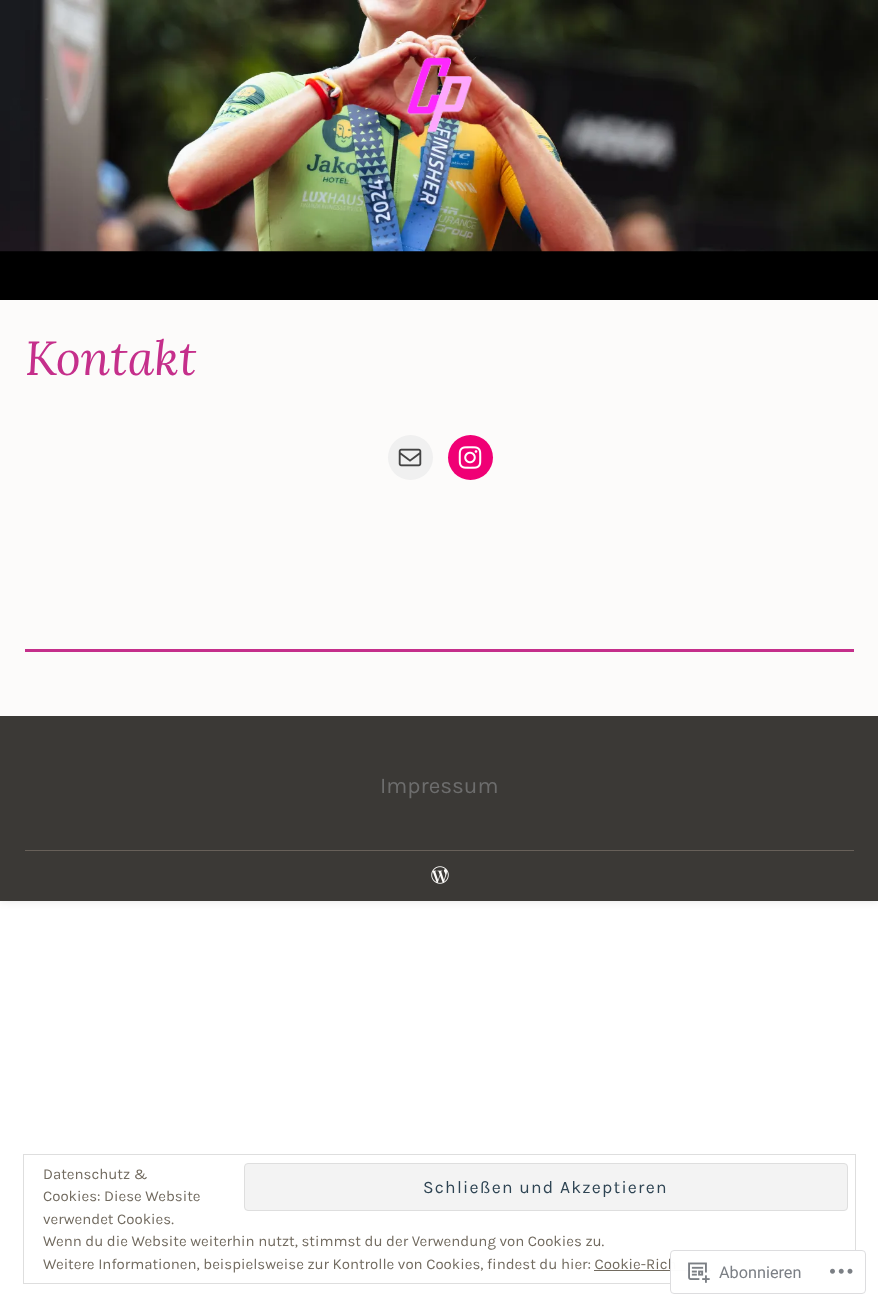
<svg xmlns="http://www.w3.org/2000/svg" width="878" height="1306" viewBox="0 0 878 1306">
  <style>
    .t1 { font: italic 48px Lora; fill: #c52f8b; }
    .t2 { font: 22.5px Karla; fill: #6d6d6d; }
    .t3 { font: 15px Karla; fill: #726b60; }
    .t4 { font: 17.5px Karla; letter-spacing: 1.25px; fill: #2e4453; }
    .t5 { font: 16.25px Roboto; fill: #7b7f85; }
  </style>
  <rect width="100%" height="100%" fill="#fff"/>
  <rect x="0" y="0" width="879" height="901" fill="#0000001a" filter="blur(4px)"/>
  <rect x="0" y="300" width="878" height="416" fill="#fcfbfa"/>
  <rect x="0" y="251" width="878" height="49" fill="#000"/>
  <image x="0" y="0" width="878" height="252" href="images/1.png"/>
  <image x="406" y="57" width="66" height="76" href="images/2.png"/>
  <text x="25" y="375" class="t1">Kontakt</text>
  <circle cx="410.5" cy="457.5" r="22.5" fill="#f0f0f0"/>
  <image x="398" y="448" width="24" height="19" href="images/3.png"/>
  <circle cx="470.5" cy="457.5" r="22.5" fill="#f00075"/>
  <image x="458" y="446" width="24" height="23" href="images/4.png"/>
  <rect x="25" y="649" width="829" height="3" fill="#c52f8b"/>
  <rect x="0" y="716" width="878" height="185" fill="#3b3936"/>
  <rect x="25" y="850" width="829" height="1" fill="#676059"/>
  <text x="380" y="793" class="t2">Impressum</text>
  <image x="431" y="866" width="18" height="18" href="images/5.png"/>
  <rect x="23.5" y="1154.5" width="832" height="129" fill="none" stroke="#dedede"/>
  <text x="43" y="1179" class="t3">Datenschutz &amp;</text>
  <text x="43" y="1201" class="t3">Cookies: Diese Website</text>
  <rect x="244.5" y="1163.5" width="603" height="47" rx="3.5" fill="#f3f3f3" stroke="#dedede"/>
  <text x="423" y="1193" class="t4">Schließen und Akzeptieren</text>
  <text x="43" y="1224" class="t3">verwendet Cookies.</text>
  <text x="43" y="1246" class="t3">Wenn du die Website weiterhin nutzt, stimmst du der Verwendung von Cookies zu.</text>
  <text x="43" y="1269" class="t3">Weitere Informationen, beispielsweise zur Kontrolle von Cookies, findest du hier: Cookie-Rich</text>
  <rect x="594" y="1270" width="117" height="1" fill="#726b60"/>
  <rect x="670" y="1250" width="196" height="44" rx="4" fill="#fffffffa"/>
  <rect x="670.5" y="1250.5" width="195" height="43" rx="3.5" fill="none" stroke="#dcdcdefa"/>
  <image x="688" y="1262" width="22" height="21" href="images/6.png"/>
  <text x="719" y="1278" class="t5">Abonnieren</text>
  <image x="830" y="1268" width="23" height="6" href="images/7.png"/>
</svg>
